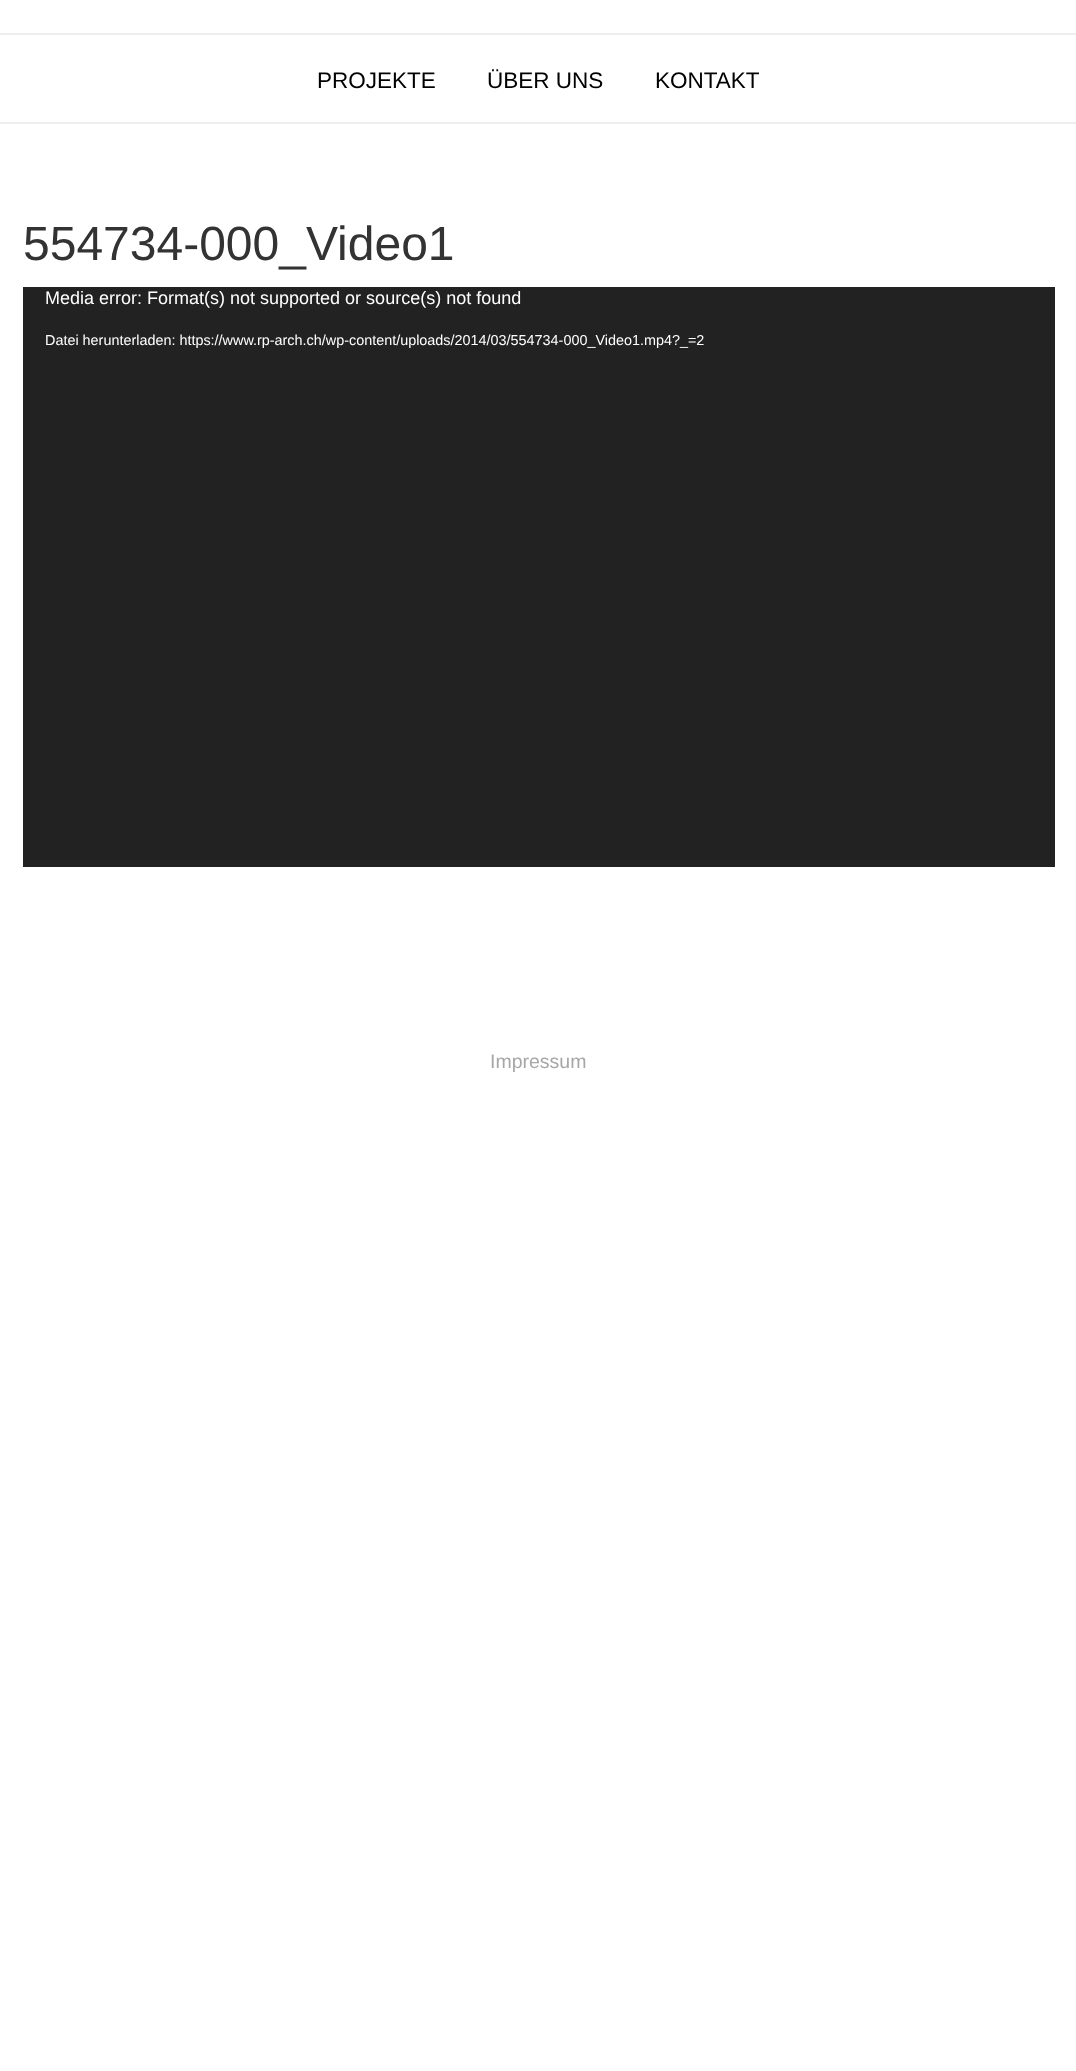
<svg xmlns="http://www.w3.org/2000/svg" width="1076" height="2071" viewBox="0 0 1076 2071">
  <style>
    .t1 { font: 22.5px Liberation Sans; fill: #000; }
    .t2 { font: 48px Liberation Sans; fill: #333; }
    .t3 { font: 18px Liberation Sans; fill: #fff; }
    .t4 { font: 14.4px Liberation Sans; fill: #fff; }
    .t5 { font: 19.5px Liberation Sans; fill: #a6a6a6; }
  </style>
  <rect width="100%" height="100%" fill="#fff"/>
  <rect x="0" y="122" width="1076" height="2" fill="#eee"/>
  <rect x="0" y="33" width="1076" height="2" fill="#eee"/>
  <text x="317" y="88" class="t1">PROJEKTE</text>
  <text x="487" y="88" class="t1">ÜBER UNS</text>
  <text x="655" y="88" class="t1">KONTAKT</text>
  <text x="23" y="260" class="t2">554734-000_Video1</text>
  <rect x="23" y="287" width="1032" height="580" fill="#222"/>
  <text x="45" y="304" class="t3">Media error: Format(s) not supported or source(s) not found</text>
  <text x="45" y="345" class="t4">Datei herunterladen: https://www.rp-arch.ch/wp-content/uploads/2014/03/554734-000_Video1.mp4?_=2</text>
  <text x="490" y="1068" class="t5">Impressum</text>
</svg>
